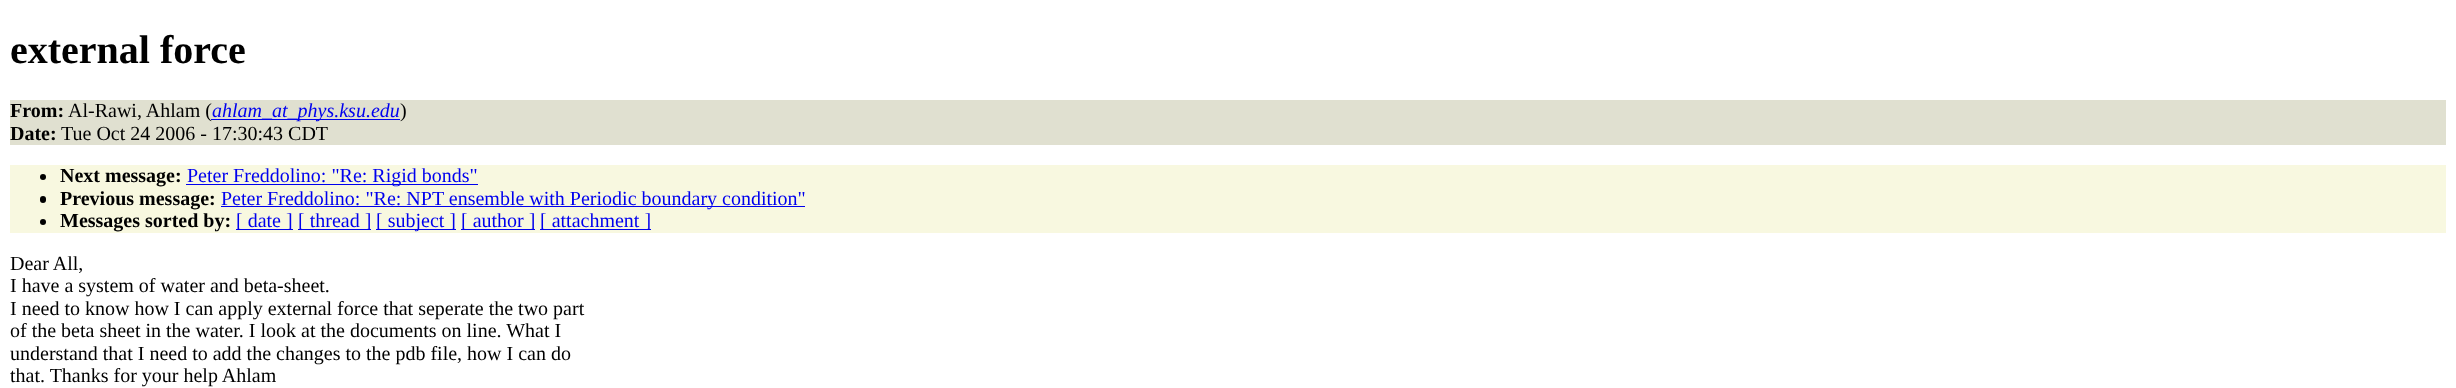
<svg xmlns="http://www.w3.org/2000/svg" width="2456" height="388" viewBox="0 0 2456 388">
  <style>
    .t1 { font: bold 40px Liberation Serif; fill: #000; }
    .t2 { font: bold 20px Liberation Serif; fill: #000; }
    .t3 { font: 20px Liberation Serif; fill: #000; }
    .t4 { font: italic 20px Liberation Serif; fill: #00e; }
    .t5 { font: 20px Liberation Serif; fill: #00e; }
  </style>
  <rect width="100%" height="100%" fill="#fff"/>
  <text x="10" y="63" class="t1">external force</text>
  <rect x="10" y="100" width="2436" height="45" fill="#e0e0d0"/>
  <text x="10" y="117" class="t2">From:</text>
  <text x="68" y="117" class="t3">Al-Rawi, Ahlam (</text>
  <rect x="211" y="119" width="189" height="1" fill="#00e"/>
  <text x="212" y="117" class="t4">ahlam_at_phys.ksu.edu</text>
  <text x="400" y="117" class="t3">)</text>
  <text x="10" y="140" class="t2">Date:</text>
  <text x="61" y="140" class="t3">Tue Oct 24 2006 - 17:30:43 CDT</text>
  <rect x="10" y="165" width="2436" height="68" fill="#f8f8e0"/>
  <circle cx="43" cy="177" r="3" fill="#000"/>
  <text x="60" y="182" class="t2">Next message:</text>
  <rect x="186" y="184" width="292" height="1" fill="#00e"/>
  <text x="187" y="182" class="t5">Peter Freddolino: "Re: Rigid bonds"</text>
  <rect x="40" y="196" width="6" height="7" rx="3" fill="#000"/>
  <text x="60" y="205" class="t2">Previous message:</text>
  <rect x="221" y="206" width="584" height="1" fill="#00e"/>
  <text x="221" y="205" class="t5">Peter Freddolino: "Re: NPT ensemble with Periodic boundary condition"</text>
  <circle cx="43" cy="222" r="3" fill="#000"/>
  <text x="60" y="227" class="t2">Messages sorted by:</text>
  <rect x="236" y="229" width="57" height="1" fill="#00e"/>
  <text x="236" y="227" class="t5">[ date ]</text>
  <rect x="298" y="229" width="73" height="1" fill="#00e"/>
  <text x="298" y="227" class="t5">[ thread ]</text>
  <rect x="376" y="229" width="80" height="1" fill="#00e"/>
  <text x="376" y="227" class="t5">[ subject ]</text>
  <rect x="461" y="229" width="74" height="1" fill="#00e"/>
  <text x="461" y="227" class="t5">[ author ]</text>
  <rect x="540" y="229" width="111" height="1" fill="#00e"/>
  <text x="540" y="227" class="t5">[ attachment ]</text>
  <text x="10" y="270" class="t3">Dear All,</text>
  <text x="10" y="292" class="t3">I have a system of water and beta-sheet.</text>
  <text x="10" y="315" class="t3">I need to know how I can apply external force that seperate the two part</text>
  <text x="10" y="337" class="t3">of the beta sheet in the water. I look at the documents on line. What I</text>
  <text x="10" y="360" class="t3">understand that I need to add the changes to the pdb file, how I can do</text>
  <text x="10" y="382" class="t3">that. Thanks for your help Ahlam</text>
</svg>
